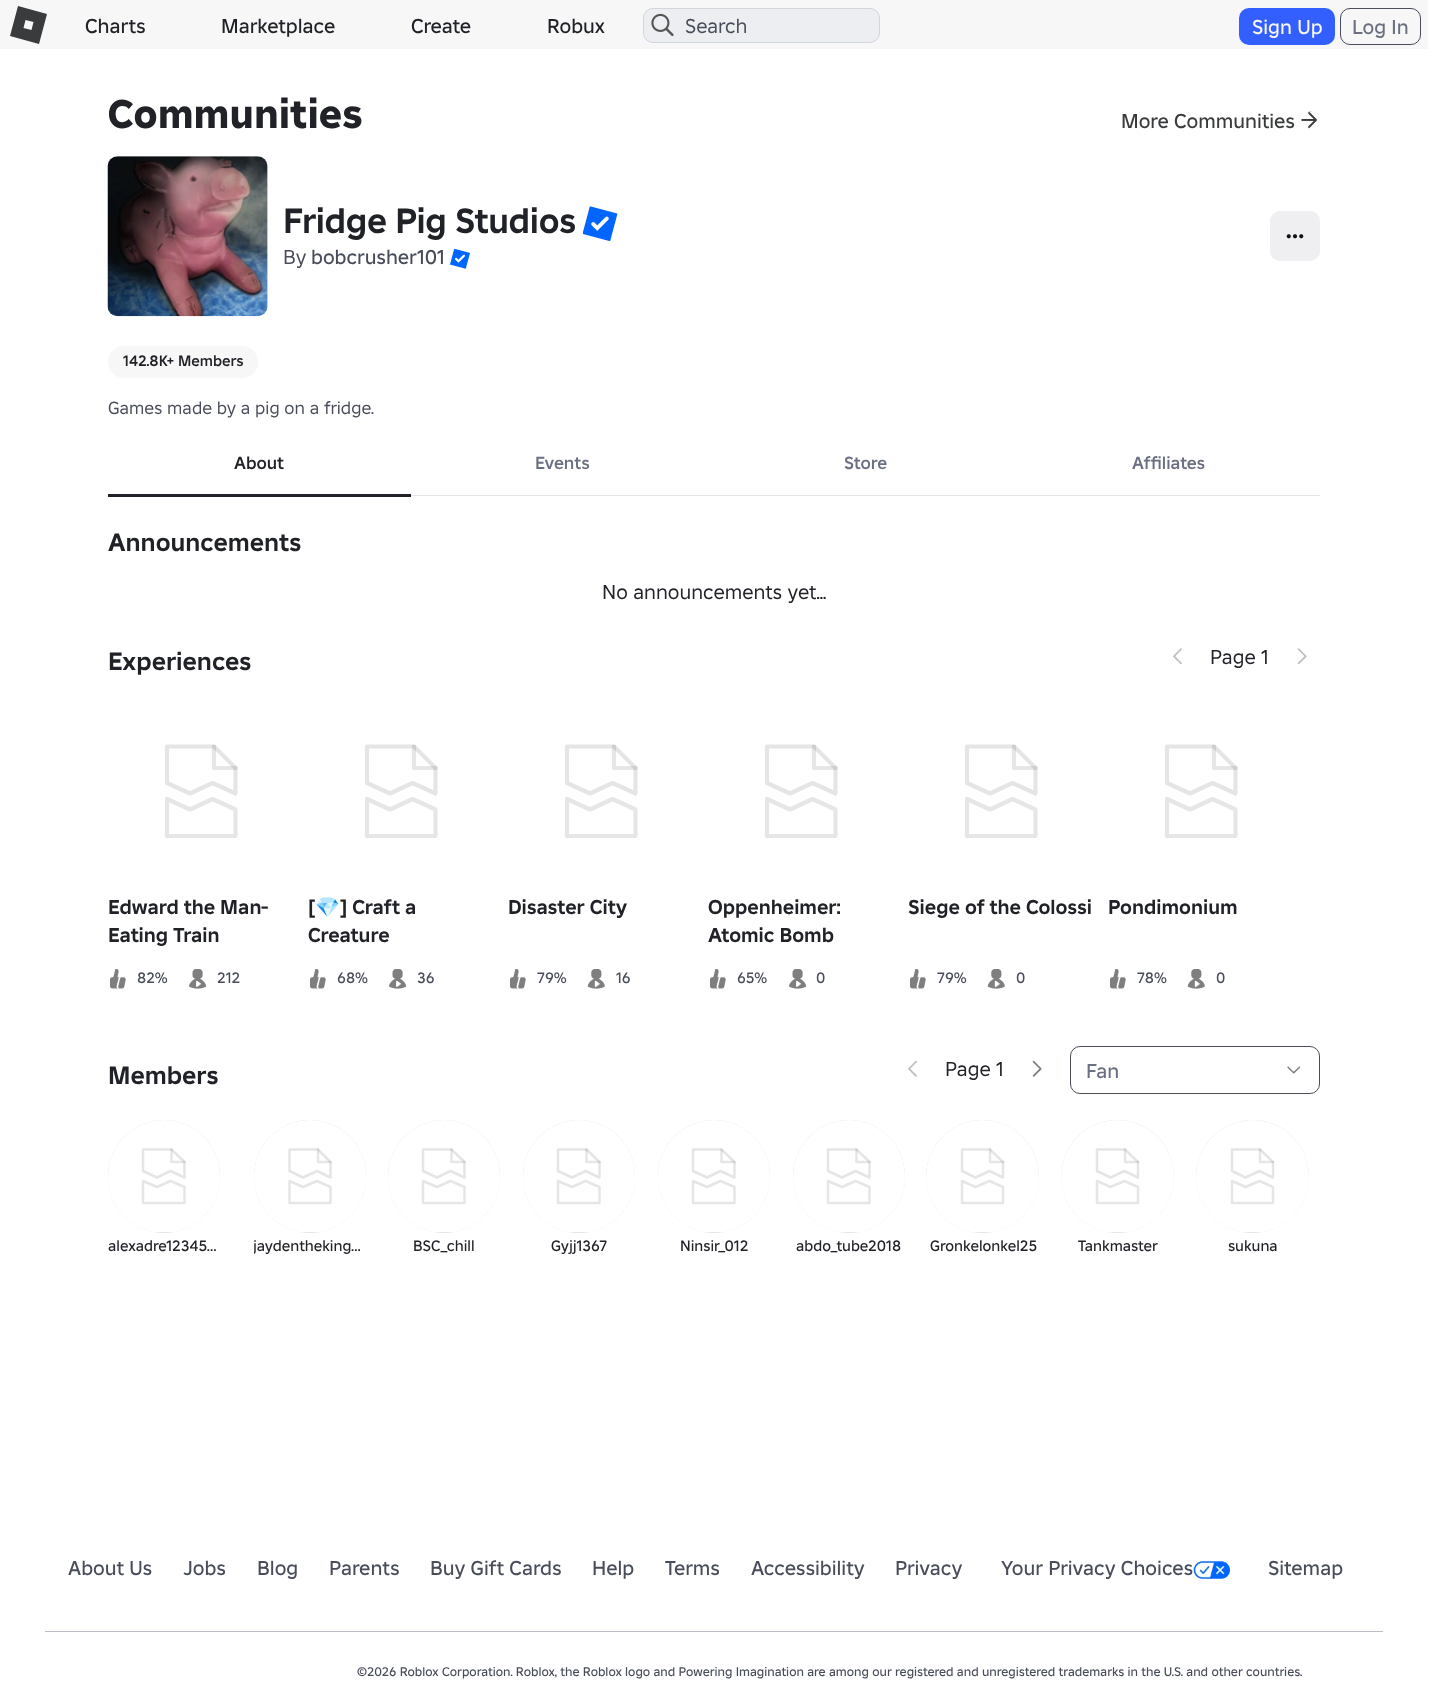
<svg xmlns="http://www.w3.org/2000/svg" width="1446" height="1696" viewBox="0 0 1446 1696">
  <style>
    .t1 { font: 500 20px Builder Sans; fill: #202227; }
    .t2 { font: 20px Builder Sans; fill: #494d5a; }
    .t3 { font: 500 20px Builder Sans; fill: #f7f7f8; }
    .t4 { font: 500 20px Builder Sans; fill: #6a6f81; }
    .t5 { font: 800 40px Builder Sans; fill: #202227; }
    .t6 { font: 500 20px Builder Sans; fill: #393b3d; }
    .t7 { font: bold 35px Builder Sans; letter-spacing: -0.3px; fill: #202227; }
    .t8 { font: 500 20px Builder Sans; fill: #494d5a; }
    .t9 { font: 600 15px Builder Sans; fill: #202227; }
    .t10 { font: 17.5px Builder Sans; fill: #494d5a; }
    .t11 { font: 600 17.5px Builder Sans; fill: #202227; }
    .t12 { font: 600 17.5px Builder Sans; fill: #6a6f81; }
    .t13 { font: bold 25px Builder Sans; fill: #202227; }
    .t14 { font: 20px Builder Sans; fill: #202227; }
    .t15 { font: bold 20px Builder Sans; fill: #202227; }
    .t16 { font: 500 15px Builder Sans; fill: #494d5a; }
    .t17 { font: bold 20px Noto Color Emoji; fill: #202227; }
    .t18 { font: 500 15px Builder Sans; fill: #202227; }
    .t19 { font: 500 12.5px Builder Sans; fill: #494d5a; }
  </style>
  <defs>
    <clipPath id="clip1"><rect x="108" y="1120" width="112" height="113" rx="56"/></clipPath>
    <clipPath id="clip2"><rect x="254" y="1120" width="112" height="113" rx="56"/></clipPath>
    <clipPath id="clip3"><rect x="254" y="1236" width="112" height="19"/></clipPath>
    <clipPath id="clip4"><rect x="388" y="1120" width="112" height="113" rx="56"/></clipPath>
    <clipPath id="clip5"><rect x="523" y="1120" width="112" height="113" rx="56"/></clipPath>
    <clipPath id="clip6"><rect x="658" y="1120" width="112" height="113" rx="56"/></clipPath>
    <clipPath id="clip7"><rect x="793" y="1120" width="112" height="113" rx="56"/></clipPath>
    <clipPath id="clip8"><rect x="926" y="1120" width="113" height="113" rx="56.5"/></clipPath>
    <clipPath id="clip9"><rect x="1061" y="1120" width="113" height="113" rx="56.5"/></clipPath>
    <clipPath id="clip10"><rect x="1196" y="1120" width="113" height="113" rx="56.5"/></clipPath>
  </defs>
  <rect width="100%" height="100%" fill="#fff"/>
  <rect x="0" y="0" width="1428" height="49" fill="#f7f7f8"/>
  <path d="M18 6L10 36L39 44L47 14ZM31.5 30L23.5 28L25.5 20L33.5 22Z" fill="#393b3d"/>
  <text x="85" y="33" class="t1">Charts</text>
  <text x="221" y="33" class="t1">Marketplace</text>
  <text x="411" y="33" class="t1">Create</text>
  <text x="547" y="33" class="t1">Robux</text>
  <rect x="643" y="8" width="237" height="35" rx="10" fill="#fff"/>
  <rect x="643" y="8" width="237" height="35" rx="10" fill="#1b254b14"/>
  <rect x="643.5" y="8.5" width="236" height="34" rx="9.5" fill="none" stroke="#1b254b1f"/>
  <image x="651" y="13" width="23" height="24" href="images/1.png"/>
  <text x="685" y="33" class="t2">Search</text>
  <rect x="1239" y="8" width="96" height="37" rx="10" fill="#335fff"/>
  <text x="1252" y="34" class="t3">Sign Up</text>
  <rect x="1340.5" y="8.5" width="80" height="36" rx="9.5" fill="none" stroke="#494d5a"/>
  <text x="1352" y="34" class="t4">Log In</text>
  <text x="108" y="128" class="t5">Communities</text>
  <text x="1121" y="128" class="t6">More Communities</text>
  <image x="1301" y="111" width="16" height="18" href="images/2.png"/>
  <rect x="108" y="156" width="160" height="160" rx="10" fill="#e4e5e9"/>
  <image x="107" y="156" width="161" height="161" href="images/3.png"/>
  <text x="283" y="233" class="t7">Fridge Pig Studios</text>
  <image x="583" y="206" width="35" height="35" href="images/4.png"/>
  <text x="283" y="264" class="t2">By</text>
  <text x="311" y="264" class="t8">bobcrusher101</text>
  <image x="450" y="249" width="20" height="20" href="images/5.png"/>
  <rect x="1270" y="211" width="50" height="50" rx="10" fill="#efeff1"/>
  <image x="1286" y="234" width="18" height="5" href="images/6.png"/>
  <rect x="108" y="346" width="150" height="32" rx="16" fill="#f7f7f8"/>
  <text x="123" y="366" class="t9">142.8K+ Members</text>
  <text x="108" y="414" class="t10">Games made by a pig on a fridge.</text>
  <rect x="108" y="494" width="303" height="3" fill="#202227"/>
  <text x="234" y="469" class="t11">About</text>
  <rect x="411" y="495" width="909" height="1" fill="#e4e5e9"/>
  <text x="535" y="469" class="t12">Events</text>
  <text x="844" y="469" class="t12">Store</text>
  <text x="1132" y="469" class="t12">Affiliates</text>
  <text x="108" y="551" class="t13">Announcements</text>
  <text x="602" y="599" class="t14">No announcements yet...</text>
  <text x="108" y="670" class="t13">Experiences</text>
  <image x="1173" y="648" width="9" height="17" href="images/7.png"/>
  <text x="1210" y="664" class="t14">Page 1</text>
  <image x="1297" y="648" width="10" height="17" href="images/8.png"/>
  <path d="M214 746.5V768H235.5M167 799.5V836H235.5V809.5L212.5 799L190 809.5L167 799Z" fill="none" stroke="#e6e6e6" stroke-width="4.2" stroke-linecap="round" stroke-linejoin="round"/>
  <path d="M235.5 768L214 746.5H167V783L190 793.5L212.5 783L235.5 793.5Z" fill="none" stroke="#0000001a" stroke-width="4.2" stroke-linecap="round" stroke-linejoin="round"/>
  <text x="108" y="914" class="t15">Edward the Man-</text>
  <text x="108" y="942" class="t15">Eating Train</text>
  <image x="110" y="969" width="16" height="20" href="images/9.png"/>
  <text x="137" y="983" class="t16">82%</text>
  <image x="189" y="969" width="17" height="20" href="images/10.png"/>
  <text x="217" y="983" class="t16">212</text>
  <path d="M414 746.5V768H435.5M367 799.5V836H435.5V809.5L412.5 799L390 809.5L367 799Z" fill="none" stroke="#e6e6e6" stroke-width="4.2" stroke-linecap="round" stroke-linejoin="round"/>
  <path d="M435.5 768L414 746.5H367V783L390 793.5L412.5 783L435.5 793.5Z" fill="none" stroke="#0000001a" stroke-width="4.2" stroke-linecap="round" stroke-linejoin="round"/>
  <text x="308" y="914" class="t15">[</text>
  <text x="315" y="914" class="t17">💎</text>
  <text x="340" y="914" class="t15">] Craft a</text>
  <text x="308" y="942" class="t15">Creature</text>
  <image x="310" y="969" width="16" height="20" href="images/9.png"/>
  <text x="337" y="983" class="t16">68%</text>
  <image x="389" y="969" width="17" height="20" href="images/10.png"/>
  <text x="417" y="983" class="t16">36</text>
  <path d="M614 746.5V768H635.5M567 799.5V836H635.5V809.5L612.5 799L590 809.5L567 799Z" fill="none" stroke="#e6e6e6" stroke-width="4.2" stroke-linecap="round" stroke-linejoin="round"/>
  <path d="M635.5 768L614 746.5H567V783L590 793.5L612.5 783L635.5 793.5Z" fill="none" stroke="#0000001a" stroke-width="4.2" stroke-linecap="round" stroke-linejoin="round"/>
  <text x="508" y="914" class="t15">Disaster City</text>
  <image x="510" y="969" width="16" height="20" href="images/9.png"/>
  <text x="537" y="983" class="t16">79%</text>
  <image x="587" y="969" width="18" height="20" href="images/11.png"/>
  <text x="616" y="983" class="t16">16</text>
  <path d="M814 746.5V768H835.5M767 799.5V836H835.5V809.5L812.5 799L790 809.5L767 799Z" fill="none" stroke="#e6e6e6" stroke-width="4.2" stroke-linecap="round" stroke-linejoin="round"/>
  <path d="M835.5 768L814 746.5H767V783L790 793.5L812.5 783L835.5 793.5Z" fill="none" stroke="#0000001a" stroke-width="4.2" stroke-linecap="round" stroke-linejoin="round"/>
  <text x="708" y="914" class="t15">Oppenheimer:</text>
  <text x="708" y="942" class="t15">Atomic Bomb</text>
  <image x="710" y="969" width="16" height="20" href="images/9.png"/>
  <text x="737" y="983" class="t16">65%</text>
  <image x="789" y="969" width="17" height="20" href="images/10.png"/>
  <text x="816" y="983" class="t16">0</text>
  <path d="M1014 746.5V768H1035.5M967 799.5V836H1035.5V809.5L1012.5 799L990 809.5L967 799Z" fill="none" stroke="#e6e6e6" stroke-width="4.2" stroke-linecap="round" stroke-linejoin="round"/>
  <path d="M1035.5 768L1014 746.5H967V783L990 793.5L1012.5 783L1035.5 793.5Z" fill="none" stroke="#0000001a" stroke-width="4.2" stroke-linecap="round" stroke-linejoin="round"/>
  <text x="908" y="914" class="t15">Siege of the Colossi</text>
  <image x="910" y="969" width="16" height="20" href="images/9.png"/>
  <text x="937" y="983" class="t16">79%</text>
  <image x="987" y="969" width="18" height="20" href="images/11.png"/>
  <text x="1016" y="983" class="t16">0</text>
  <path d="M1214 746.5V768H1235.5M1167 799.5V836H1235.5V809.5L1212.5 799L1190 809.5L1167 799Z" fill="none" stroke="#e6e6e6" stroke-width="4.2" stroke-linecap="round" stroke-linejoin="round"/>
  <path d="M1235.5 768L1214 746.5H1167V783L1190 793.5L1212.5 783L1235.5 793.5Z" fill="none" stroke="#0000001a" stroke-width="4.2" stroke-linecap="round" stroke-linejoin="round"/>
  <text x="1108" y="914" class="t15">Pondimonium</text>
  <image x="1110" y="969" width="16" height="20" href="images/9.png"/>
  <text x="1137" y="983" class="t16">78%</text>
  <image x="1187" y="969" width="18" height="20" href="images/11.png"/>
  <text x="1216" y="983" class="t16">0</text>
  <text x="108" y="1084" class="t13">Members</text>
  <image x="908" y="1060" width="9" height="17" href="images/12.png"/>
  <text x="945" y="1076" class="t14">Page 1</text>
  <image x="1032" y="1060" width="10" height="17" href="images/13.png"/>
  <rect x="1070.5" y="1046.5" width="249" height="47" rx="9.5" fill="none" stroke="#494d5a"/>
  <text x="1086" y="1078" class="t4">Fan</text>
  <image x="1287" y="1066" width="14" height="8" href="images/14.png"/>
  <rect x="108" y="1120" width="112" height="113" rx="56" fill="#e4e5e9"/>
  <g clip-path="url(#clip1)">
    <path d="M164 1120C195 1120 220 1145 220 1176V1232H108V1176C108 1145 133 1120 164 1120Z" fill="#fff"/>
  </g>
  <path d="M171.5 1149.5V1162H184.5M143 1181V1203H184.5V1187L170.5 1181L157 1187Z" fill="none" stroke="#e6e6e6" stroke-width="2.5" stroke-linecap="round" stroke-linejoin="round"/>
  <path d="M184.5 1162L171.5 1149.5H143V1171L157 1177.5L170.5 1171L184.5 1177.5Z" fill="none" stroke="#0000001a" stroke-width="2.5" stroke-linecap="round" stroke-linejoin="round"/>
  <text x="108" y="1251" class="t18">alexadre12345…</text>
  <rect x="254" y="1120" width="112" height="113" rx="56" fill="#e4e5e9"/>
  <g clip-path="url(#clip2)">
    <path d="M310 1120C341 1120 366 1145 366 1176V1232H254V1176C254 1145 279 1120 310 1120Z" fill="#fff"/>
  </g>
  <path d="M318 1149.5V1162H330.5M289.5 1181V1203H330.5V1187L317 1181L303 1187Z" fill="none" stroke="#e6e6e6" stroke-width="2.5" stroke-linecap="round" stroke-linejoin="round"/>
  <path d="M330.5 1162L318 1149.5H289.5V1171L303 1177.5L317 1171L330.5 1177.5Z" fill="none" stroke="#0000001a" stroke-width="2.5" stroke-linecap="round" stroke-linejoin="round"/>
  <g clip-path="url(#clip3)">
    <text x="253" y="1251" class="t18">jaydentheking…</text>
  </g>
  <rect x="388" y="1120" width="112" height="113" rx="56" fill="#e4e5e9"/>
  <g clip-path="url(#clip4)">
    <path d="M444 1120C475 1120 500 1145 500 1176V1232H388V1176C388 1145 413 1120 444 1120Z" fill="#fff"/>
  </g>
  <path d="M451.5 1149.5V1162H464.5M423 1181V1203H464.5V1187L450.5 1181L437 1187Z" fill="none" stroke="#e6e6e6" stroke-width="2.5" stroke-linecap="round" stroke-linejoin="round"/>
  <path d="M464.5 1162L451.5 1149.5H423V1171L437 1177.5L450.5 1171L464.5 1177.5Z" fill="none" stroke="#0000001a" stroke-width="2.5" stroke-linecap="round" stroke-linejoin="round"/>
  <text x="413" y="1251" class="t18">BSC_chill</text>
  <rect x="523" y="1120" width="112" height="113" rx="56" fill="#e4e5e9"/>
  <g clip-path="url(#clip5)">
    <path d="M579 1120C610 1120 635 1145 635 1176V1232H523V1176C523 1145 548 1120 579 1120Z" fill="#fff"/>
  </g>
  <path d="M586.5 1149.5V1162H599.5M558 1181V1203H599.5V1187L585.5 1181L572 1187Z" fill="none" stroke="#e6e6e6" stroke-width="2.5" stroke-linecap="round" stroke-linejoin="round"/>
  <path d="M599.5 1162L586.5 1149.5H558V1171L572 1177.5L585.5 1171L599.5 1177.5Z" fill="none" stroke="#0000001a" stroke-width="2.5" stroke-linecap="round" stroke-linejoin="round"/>
  <text x="551" y="1251" class="t18">Gyjj1367</text>
  <rect x="658" y="1120" width="112" height="113" rx="56" fill="#e4e5e9"/>
  <g clip-path="url(#clip6)">
    <path d="M714 1120C745 1120 770 1145 770 1176V1232H658V1176C658 1145 683 1120 714 1120Z" fill="#fff"/>
  </g>
  <path d="M721.5 1149.5V1162H734.5M693 1181V1203H734.5V1187L720.5 1181L707 1187Z" fill="none" stroke="#e6e6e6" stroke-width="2.5" stroke-linecap="round" stroke-linejoin="round"/>
  <path d="M734.5 1162L721.5 1149.5H693V1171L707 1177.5L720.5 1171L734.5 1177.5Z" fill="none" stroke="#0000001a" stroke-width="2.5" stroke-linecap="round" stroke-linejoin="round"/>
  <text x="680" y="1251" class="t18">Ninsir_012</text>
  <rect x="793" y="1120" width="112" height="113" rx="56" fill="#e4e5e9"/>
  <g clip-path="url(#clip7)">
    <path d="M849 1120C880 1120 905 1145 905 1176V1232H793V1176C793 1145 818 1120 849 1120Z" fill="#fff"/>
  </g>
  <path d="M856.5 1149.5V1162H869.5M828 1181V1203H869.5V1187L855.5 1181L842 1187Z" fill="none" stroke="#e6e6e6" stroke-width="2.5" stroke-linecap="round" stroke-linejoin="round"/>
  <path d="M869.5 1162L856.5 1149.5H828V1171L842 1177.5L855.5 1171L869.5 1177.5Z" fill="none" stroke="#0000001a" stroke-width="2.5" stroke-linecap="round" stroke-linejoin="round"/>
  <text x="796" y="1251" class="t18">abdo_tube2018</text>
  <circle cx="982.5" cy="1176.5" r="56.5" fill="#e4e5e9"/>
  <g clip-path="url(#clip8)">
    <path d="M982.5 1120C1013.5 1120 1039 1145.5 1039 1176.5V1232H926V1176.5C926 1145.5 951.5 1120 982.5 1120Z" fill="#fff"/>
  </g>
  <path d="M990 1149.5V1162H1003M962 1181V1203H1003V1187L989.5 1181L975.5 1187Z" fill="none" stroke="#e6e6e6" stroke-width="2.5" stroke-linecap="round" stroke-linejoin="round"/>
  <path d="M1003 1162L990 1149.5H962V1171L975.5 1177.5L989.5 1171L1003 1177.5Z" fill="none" stroke="#0000001a" stroke-width="2.5" stroke-linecap="round" stroke-linejoin="round"/>
  <text x="930" y="1251" class="t18">Gronkelonkel25</text>
  <circle cx="1117.5" cy="1176.5" r="56.5" fill="#e4e5e9"/>
  <g clip-path="url(#clip9)">
    <path d="M1117.5 1120C1148.5 1120 1174 1145.5 1174 1176.5V1232H1061V1176.5C1061 1145.5 1086.5 1120 1117.5 1120Z" fill="#fff"/>
  </g>
  <path d="M1125 1149.5V1162H1138M1097 1181V1203H1138V1187L1124.5 1181L1110.5 1187Z" fill="none" stroke="#e6e6e6" stroke-width="2.5" stroke-linecap="round" stroke-linejoin="round"/>
  <path d="M1138 1162L1125 1149.5H1097V1171L1110.5 1177.5L1124.5 1171L1138 1177.5Z" fill="none" stroke="#0000001a" stroke-width="2.5" stroke-linecap="round" stroke-linejoin="round"/>
  <text x="1078" y="1251" class="t18">Tankmaster</text>
  <circle cx="1252.5" cy="1176.5" r="56.5" fill="#e4e5e9"/>
  <g clip-path="url(#clip10)">
    <path d="M1252.5 1120C1283.5 1120 1309 1145.5 1309 1176.5V1232H1196V1176.5C1196 1145.5 1221.5 1120 1252.5 1120Z" fill="#fff"/>
  </g>
  <path d="M1260 1149.5V1162H1273M1232 1181V1203H1273V1187L1259.5 1181L1245.5 1187Z" fill="none" stroke="#e6e6e6" stroke-width="2.5" stroke-linecap="round" stroke-linejoin="round"/>
  <path d="M1273 1162L1260 1149.5H1232V1171L1245.5 1177.5L1259.5 1171L1273 1177.5Z" fill="none" stroke="#0000001a" stroke-width="2.5" stroke-linecap="round" stroke-linejoin="round"/>
  <text x="1228" y="1251" class="t18">sukuna</text>
  <text x="68" y="1575" class="t8">About Us</text>
  <text x="183" y="1575" class="t8">Jobs</text>
  <text x="257" y="1575" class="t8">Blog</text>
  <text x="329" y="1575" class="t8">Parents</text>
  <text x="430" y="1575" class="t8">Buy Gift Cards</text>
  <text x="592" y="1575" class="t8">Help</text>
  <text x="665" y="1575" class="t8">Terms</text>
  <text x="751" y="1575" class="t8">Accessibility</text>
  <text x="895" y="1575" class="t8">Privacy</text>
  <text x="1001" y="1575" class="t8">Your Privacy Choices</text>
  <image x="1193" y="1561" width="37" height="18" href="images/15.png"/>
  <text x="1268" y="1575" class="t8">Sitemap</text>
  <rect x="45" y="1631" width="1338" height="1" fill="#bcbec8"/>
  <text x="357" y="1676" class="t19">©2026 Roblox Corporation. Roblox, the Roblox logo and Powering Imagination are among our registered and unregistered trademarks in the U.S. and other countries.</text>
</svg>
